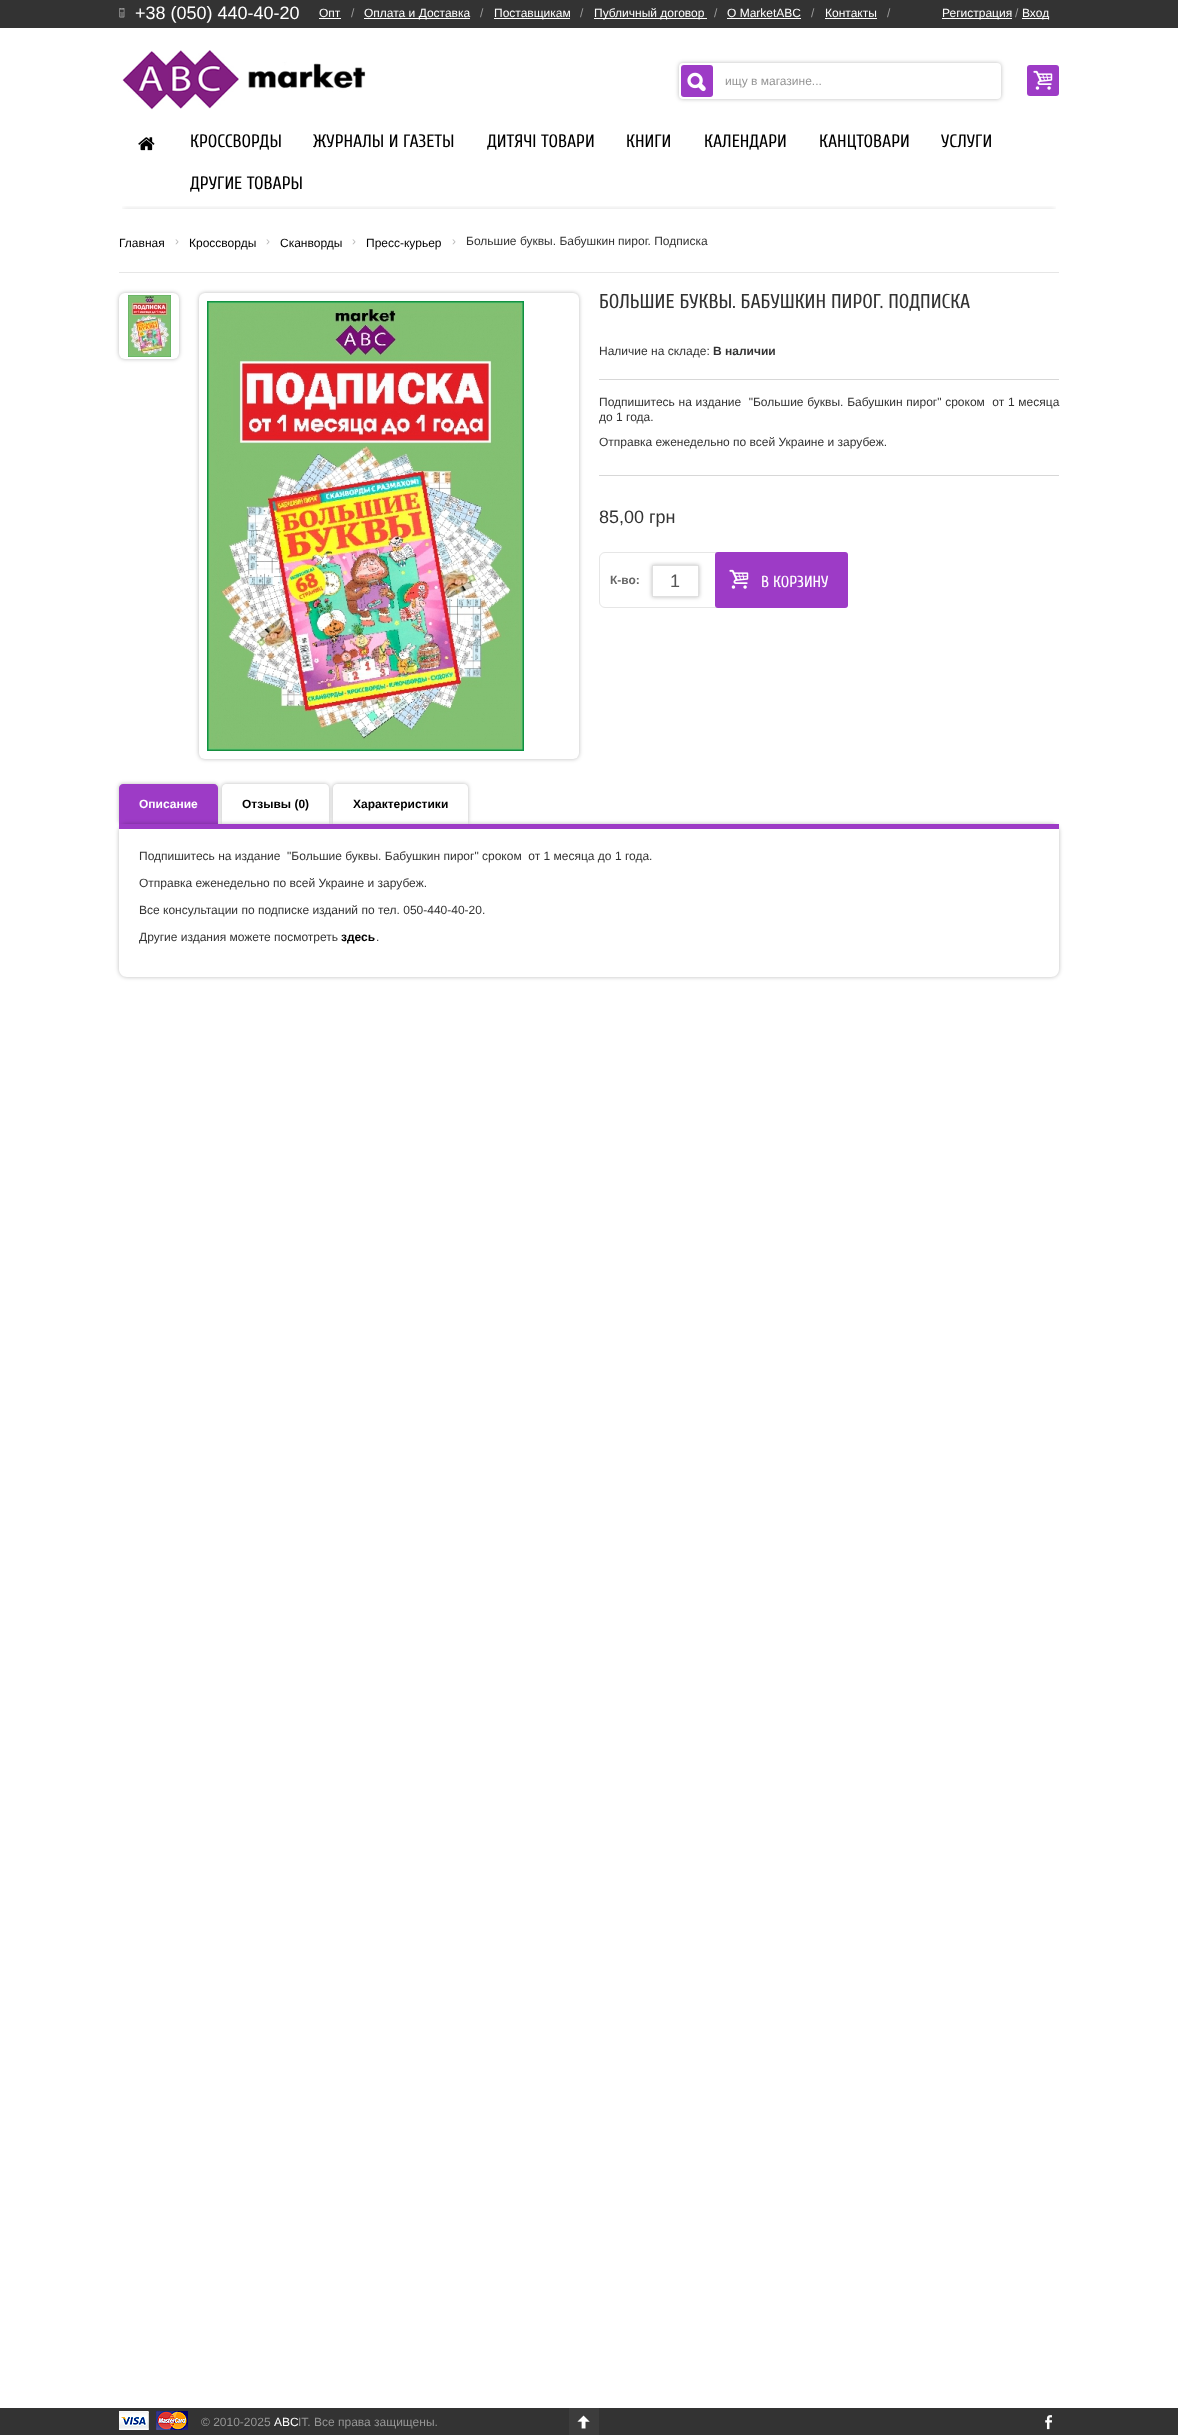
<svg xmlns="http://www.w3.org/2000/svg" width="1178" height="2435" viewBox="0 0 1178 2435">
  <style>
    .t1 { font: 18px Liberation Sans; fill: #fff; }
    .t2 { font: 12px Liberation Sans; fill: #fff; }
    .t3 { font: 12px Liberation Sans; fill: #9b9b9b; }
    .t4 { font: 12px Liberation Sans; fill: #959595; }
    .t5 { font: 18px Cuprum; fill: #000; }
    .t6 { font: 12px Liberation Sans; fill: #000; }
    .t7 { font: 12px Liberation Sans; fill: #bababa; }
    .t8 { font: 12px Liberation Sans; fill: #333; }
    .t9 { font: 20px Cuprum; fill: #333; }
    .t10 { font: bold 12px Liberation Sans; fill: #333; }
    .t11 { font: 18px Liberation Sans; fill: #333; }
    .t12 { font: bold 12px Liberation Sans; fill: #666; }
    .t13 { font: 18px Liberation Sans; fill: #555; }
    .t14 { font: 16px Cuprum; fill: #fff; }
    .t15 { font: bold 12px Liberation Sans; fill: #fff; }
    .t16 { font: bold 12px Liberation Sans; fill: #000; }
  </style>
  <defs>
    <clipPath id="clip1"><rect x="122" y="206" width="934" height="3"/></clipPath>
    <clipPath id="clip2"><path d="M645 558H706V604H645ZM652 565H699V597H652Z" clip-rule="evenodd"/></clipPath>
  </defs>
  <rect width="100%" height="100%" fill="#fff"/>
  <rect x="0" y="0" width="1178" height="28" fill="#333"/>
  <image x="119" y="8" width="6" height="10" href="images/1.png"/>
  <text x="135" y="19" class="t1">+38 (050) 440-40-20</text>
  <text x="319" y="17" class="t2">Опт</text>
  <rect x="319" y="18" width="22" height="1" fill="#fff"/>
  <text x="351" y="17" class="t3">/</text>
  <rect x="364" y="18" width="106" height="1" fill="#fff"/>
  <text x="364" y="17" class="t2">Оплата и Доставка</text>
  <text x="480" y="17" class="t3">/</text>
  <rect x="494" y="18" width="76" height="1" fill="#fff"/>
  <text x="494" y="17" class="t2">Поставщикам</text>
  <text x="580" y="17" class="t3">/</text>
  <rect x="594" y="18" width="113" height="1" fill="#fff"/>
  <text x="594" y="17" class="t2">Публичный договор</text>
  <text x="714" y="17" class="t3">/</text>
  <text x="727" y="17" class="t2">О MarketABC</text>
  <rect x="727" y="18" width="74" height="1" fill="#fff"/>
  <text x="811" y="17" class="t3">/</text>
  <text x="825" y="17" class="t2">Контакты</text>
  <rect x="825" y="18" width="52" height="1" fill="#fff"/>
  <text x="887" y="17" class="t3">/</text>
  <rect x="942" y="18" width="70" height="1" fill="#fff"/>
  <text x="942" y="17" class="t2">Регистрация</text>
  <text x="1015" y="17" class="t3">/</text>
  <rect x="1022" y="18" width="27" height="1" fill="#fff"/>
  <text x="1022" y="17" class="t2">Вход</text>
  <image x="122" y="50" width="244" height="60" href="images/2.png"/>
  <rect x="679" y="63" width="322" height="36" rx="4" fill="#00000045" filter="blur(2px)"/>
  <rect x="680" y="64" width="320" height="34" rx="3" fill="#fff" stroke="#fff" stroke-width="2"/>
  <rect x="681" y="65" width="32" height="32" rx="3" fill="#9d3bc6"/>
  <image x="687" y="72" width="19" height="20" href="images/3.png"/>
  <text x="725" y="85" class="t4">ищу в магазине...</text>
  <rect x="1027" y="65" width="32" height="31" rx="3" fill="#9d3bc6"/>
  <image x="1033" y="70" width="20" height="20" href="images/4.png"/>
  <image x="138" y="137" width="17" height="14" href="images/5.png"/>
  <text x="190" y="147" class="t5">КРОССВОРДЫ</text>
  <text x="313" y="147" class="t5">ЖУРНАЛЫ И ГАЗЕТЫ</text>
  <text x="487" y="147" class="t5">ДИТЯЧІ ТОВАРИ</text>
  <text x="626" y="147" class="t5">КНИГИ</text>
  <text x="704" y="147" class="t5">КАЛЕНДАРИ</text>
  <text x="819" y="147" class="t5">КАНЦТОВАРИ</text>
  <text x="941" y="147" class="t5">УСЛУГИ</text>
  <text x="190" y="189" class="t5">ДРУГИЕ ТОВАРЫ</text>
  <g clip-path="url(#clip1)">
    <rect x="123" y="208" width="932" height="785" fill="#0000001a" filter="blur(2.5px)"/>
  </g>
  <rect x="119" y="272" width="940" height="1" fill="#e6e6e6"/>
  <text x="119" y="247" class="t6">Главная</text>
  <text x="175" y="245" class="t7">›</text>
  <text x="189" y="247" class="t6">Кроссворды</text>
  <text x="266" y="245" class="t7">›</text>
  <text x="280" y="247" class="t6">Сканворды</text>
  <text x="352" y="245" class="t7">›</text>
  <text x="366" y="247" class="t6">Пресс-курьер</text>
  <text x="452" y="245" class="t7">›</text>
  <text x="466" y="245" class="t8">Большие буквы. Бабушкин пирог. Подписка</text>
  <rect x="119" y="293" width="60" height="66" rx="6" fill="#00000045" filter="blur(2px)"/>
  <rect x="119" y="293" width="60" height="66" rx="6" fill="#fff"/>
  <image x="128" y="295" width="43" height="62" href="images/6.png"/>
  <rect x="199" y="293" width="380" height="466" rx="6" fill="#00000045" filter="blur(2px)"/>
  <rect x="199" y="293" width="380" height="466" rx="6" fill="#fff"/>
  <image x="207" y="301" width="317" height="450" href="images/7.png"/>
  <text x="599" y="308" class="t9">БОЛЬШИЕ БУКВЫ. БАБУШКИН ПИРОГ. ПОДПИСКА</text>
  <rect x="599" y="379" width="460" height="1" fill="#d7d7d7"/>
  <text x="599" y="355" class="t8">Наличие на складе:</text>
  <text x="713" y="355" class="t10">В наличии</text>
  <rect x="599" y="475" width="460" height="1" fill="#d7d7d7"/>
  <text x="599" y="406" word-spacing="0.4" class="t8" xml:space="preserve">Подпишитесь на издание  "Большие буквы. Бабушкин пирог" сроком  от 1 месяца</text>
  <text x="599" y="421" class="t8">до 1 года.</text>
  <text x="599" y="446" class="t8">Отправка еженедельно по всей Украине и зарубеж.</text>
  <text x="599" y="523" class="t11">85,00 грн</text>
  <rect x="599.5" y="552.5" width="125" height="55" rx="5.5" fill="none" stroke="#e6e6e6"/>
  <text x="610" y="584" class="t12">К-во:</text>
  <g clip-path="url(#clip2)">
    <rect x="652" y="565" width="47" height="32" fill="#00000045" filter="blur(2px)"/>
  </g>
  <rect x="652.5" y="565.5" width="46" height="31" fill="none" stroke="#e0e0e0"/>
  <text x="670" y="587" class="t13">1</text>
  <rect x="715" y="552" width="133" height="56" rx="3" fill="#9d3bc6"/>
  <image x="729" y="569" width="20" height="20" href="images/4.png"/>
  <text x="761" y="587" class="t14">В КОРЗИНУ</text>
  <rect x="119" y="784" width="99" height="40" rx="4" fill="#00000045" filter="blur(2px)"/>
  <path d="M123 784H214C216 784 218 786 218 788V824H119V788C119 786 121 784 123 784Z" fill="#9d3bc6"/>
  <text x="139" y="808" class="t15">Описание</text>
  <rect x="222" y="784" width="107" height="40" rx="4" fill="#00000045" filter="blur(2px)"/>
  <path d="M226 784H325C327 784 329 786 329 788V824H222V788C222 786 224 784 226 784Z" fill="#fff"/>
  <text x="242" y="808" class="t16">Отзывы (0)</text>
  <rect x="333" y="784" width="135" height="40" rx="4" fill="#00000045" filter="blur(2px)"/>
  <path d="M337 784H464C466 784 468 786 468 788V824H333V788C333 786 335 784 337 784Z" fill="#fff"/>
  <text x="353" y="808" class="t16">Характеристики</text>
  <rect x="119" y="824" width="940" height="153" rx="8" fill="#00000045" filter="blur(2px)"/>
  <path d="M119 824H1059V969C1059 973.5 1055.5 977 1051 977H127C122.5 977 119 973.5 119 969Z" fill="#fff"/>
  <rect x="119" y="824" width="940" height="5" fill="#9d3bc6"/>
  <text x="139" y="860" class="t8" xml:space="preserve">Подпишитесь на издание  "Большие буквы. Бабушкин пирог" сроком  от 1 месяца до 1 года.</text>
  <text x="139" y="887" class="t8">Отправка еженедельно по всей Украине и зарубеж.</text>
  <text x="139" y="914" class="t8">Все консультации по подписке изданий по тел. 050-440-40-20.</text>
  <text x="139" y="941" class="t8">Другие издания можете посмотреть</text>
  <text x="341" y="941" class="t16">здесь</text>
  <text x="376" y="941" class="t8">.</text>
  <rect x="0" y="2408" width="1178" height="27" fill="#333"/>
  <image x="119" y="2411" width="30" height="19" href="images/8.png"/>
  <image x="156" y="2411" width="32" height="19" href="images/9.png"/>
  <text x="201" y="2426" class="t4">© 2010-2025</text>
  <text x="274" y="2426" class="t2">ABC</text>
  <text x="298" y="2426" class="t4">IT. Все права защищены.</text>
  <image x="1045" y="2415" width="7" height="15" href="images/10.png"/>
  <rect x="569" y="2408" width="30" height="27" fill="#3c3c3c"/>
  <image x="577" y="2415" width="13" height="14" href="images/11.png"/>
</svg>
